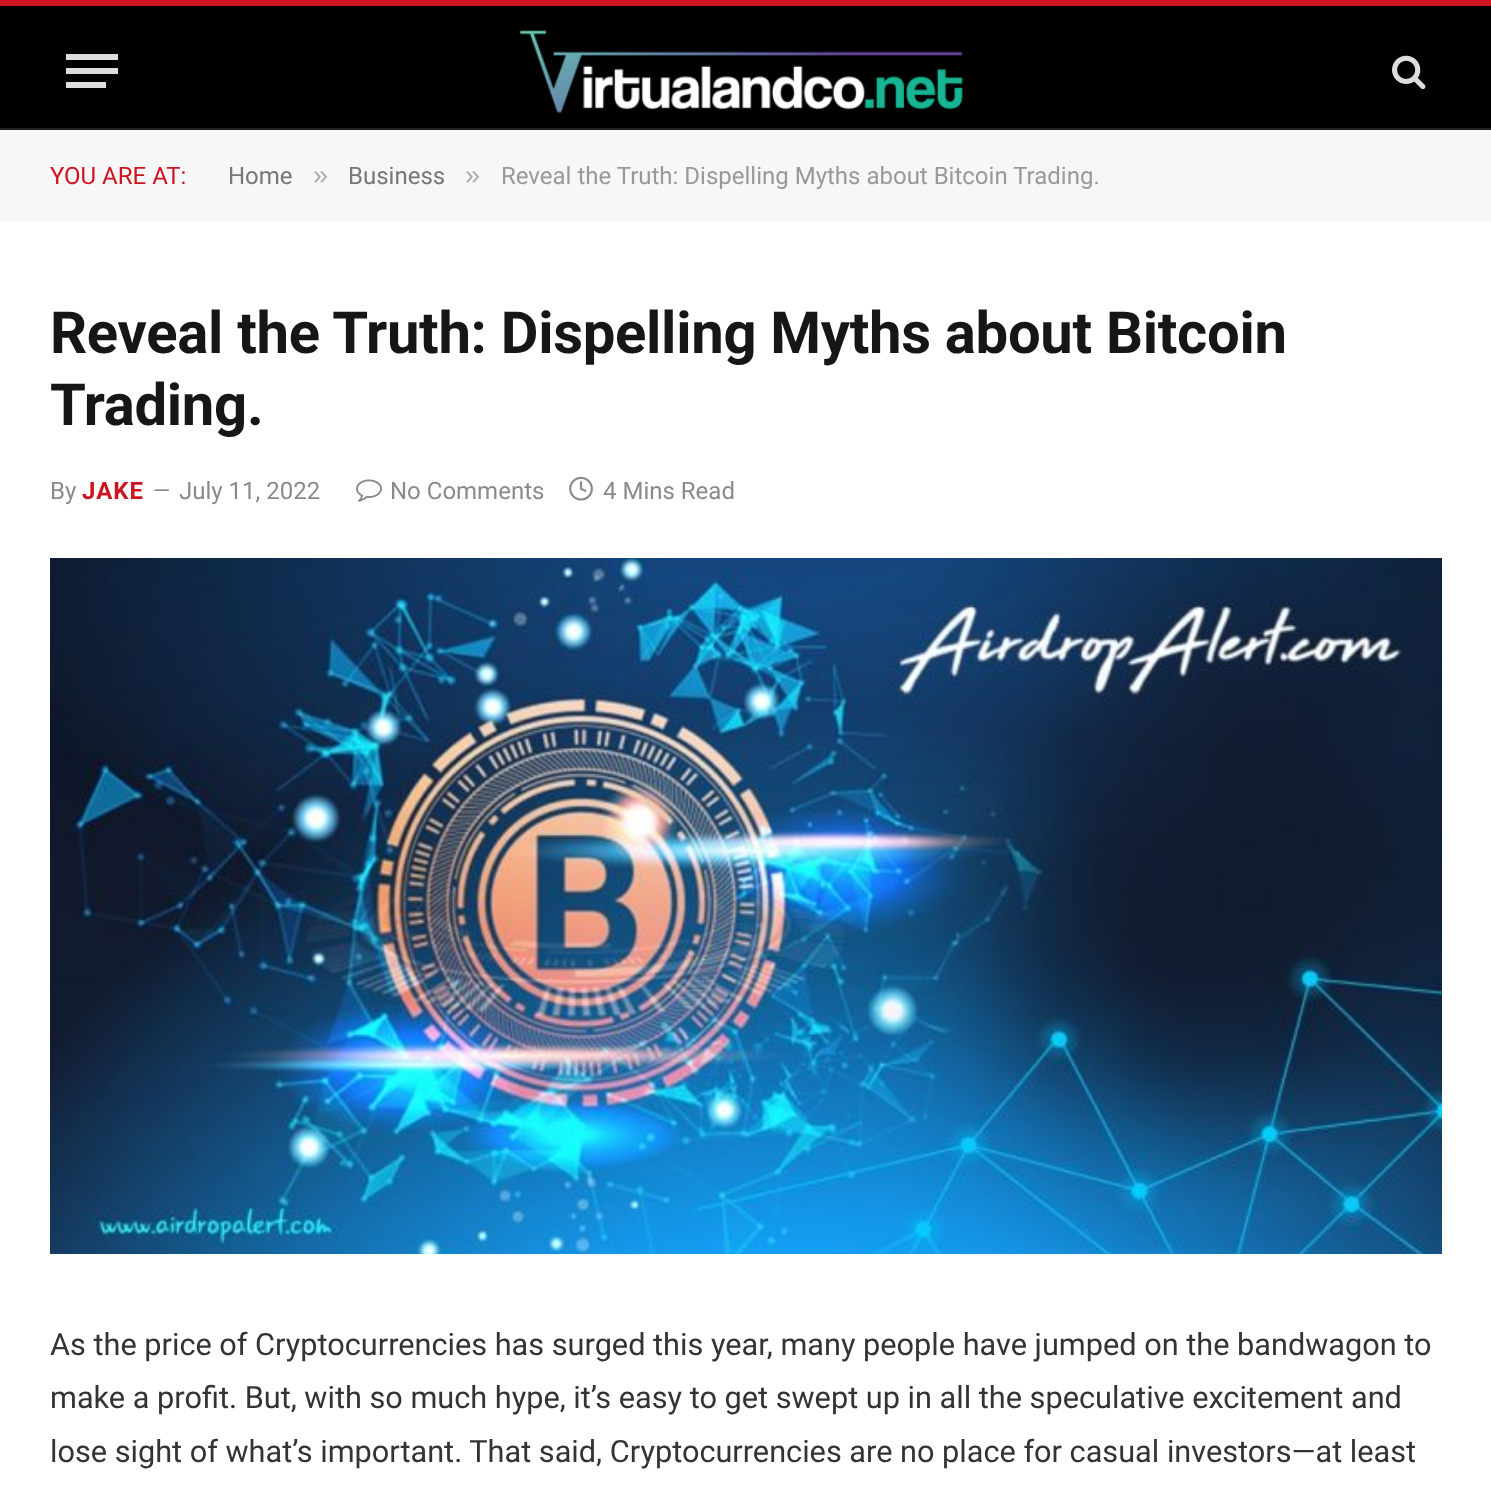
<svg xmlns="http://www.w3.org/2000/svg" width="1491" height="1485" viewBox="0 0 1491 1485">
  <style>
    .t1 { font: 24px Roboto; fill: #ce1421; }
    .t2 { font: 24px Roboto; fill: #777; }
    .t3 { font: 27px Liberation Sans; fill: #acacac; }
    .t4 { font: 24px Roboto; fill: #999; }
    .t5 { font: bold 58px Roboto; letter-spacing: -0.3px; fill: #161616; }
    .t6 { font: 24px Roboto; fill: #8a8a8a; }
    .t7 { font: bold 24px Roboto; letter-spacing: 1px; fill: #ce1421; }
    .t8 { font: 22px Roboto; fill: #8a8a8a; }
    .t9 { font: 30.7px Roboto; fill: #333; }
  </style>
  <rect width="100%" height="100%" fill="#fff"/>
  <rect x="0" y="6" width="1491" height="122" fill="#000"/>
  <rect x="0" y="0" width="1491" height="6" fill="#ce1421"/>
  <rect x="0" y="128" width="1491" height="2" fill="#222"/>
  <rect x="66" y="82" width="40" height="6" fill="#ddd"/>
  <rect x="66" y="54" width="52" height="6" fill="#ddd"/>
  <rect x="66" y="68" width="52" height="6" fill="#ddd"/>
  <image x="520" y="30" width="443" height="83" href="images/1.png"/>
  <image x="1392" y="55" width="34" height="35" href="images/2.png"/>
  <rect x="0" y="130" width="1491" height="92" fill="#f7f7f7"/>
  <text x="50" y="184" class="t1">YOU ARE AT:</text>
  <text x="228" y="184" class="t2">Home</text>
  <text x="313" y="184" class="t3">»</text>
  <text x="348" y="184" class="t2">Business</text>
  <text x="465" y="184" class="t3">»</text>
  <text x="501" y="184" class="t4">Reveal the Truth: Dispelling Myths about Bitcoin Trading.</text>
  <text x="50" y="353" class="t5">Reveal the Truth: Dispelling Myths about Bitcoin</text>
  <text x="50" y="425" class="t5">Trading.</text>
  <text x="50" y="499" class="t6">By</text>
  <text x="82" y="499" class="t7">JAKE</text>
  <text x="153" y="498" class="t8">—</text>
  <text x="179" y="499" class="t6">July 11, 2022</text>
  <image x="356" y="479" width="26" height="23" href="images/3.png"/>
  <text x="390" y="499" class="t6">No Comments</text>
  <image x="569" y="476" width="24" height="25" href="images/4.png"/>
  <text x="603" y="499" class="t6">4 Mins Read</text>
  <image x="50" y="558" width="1392" height="696" href="images/5.png"/>
  <text x="50" y="1355" class="t9">As the price of Cryptocurrencies has surged this year, many people have jumped on the bandwagon to</text>
  <text x="50" y="1408" class="t9">make a profit. But, with so much hype, it’s easy to get swept up in all the speculative excitement and</text>
  <text x="50" y="1462" class="t9">lose sight of what’s important. That said, Cryptocurrencies are no place for casual investors—at least</text>
</svg>
